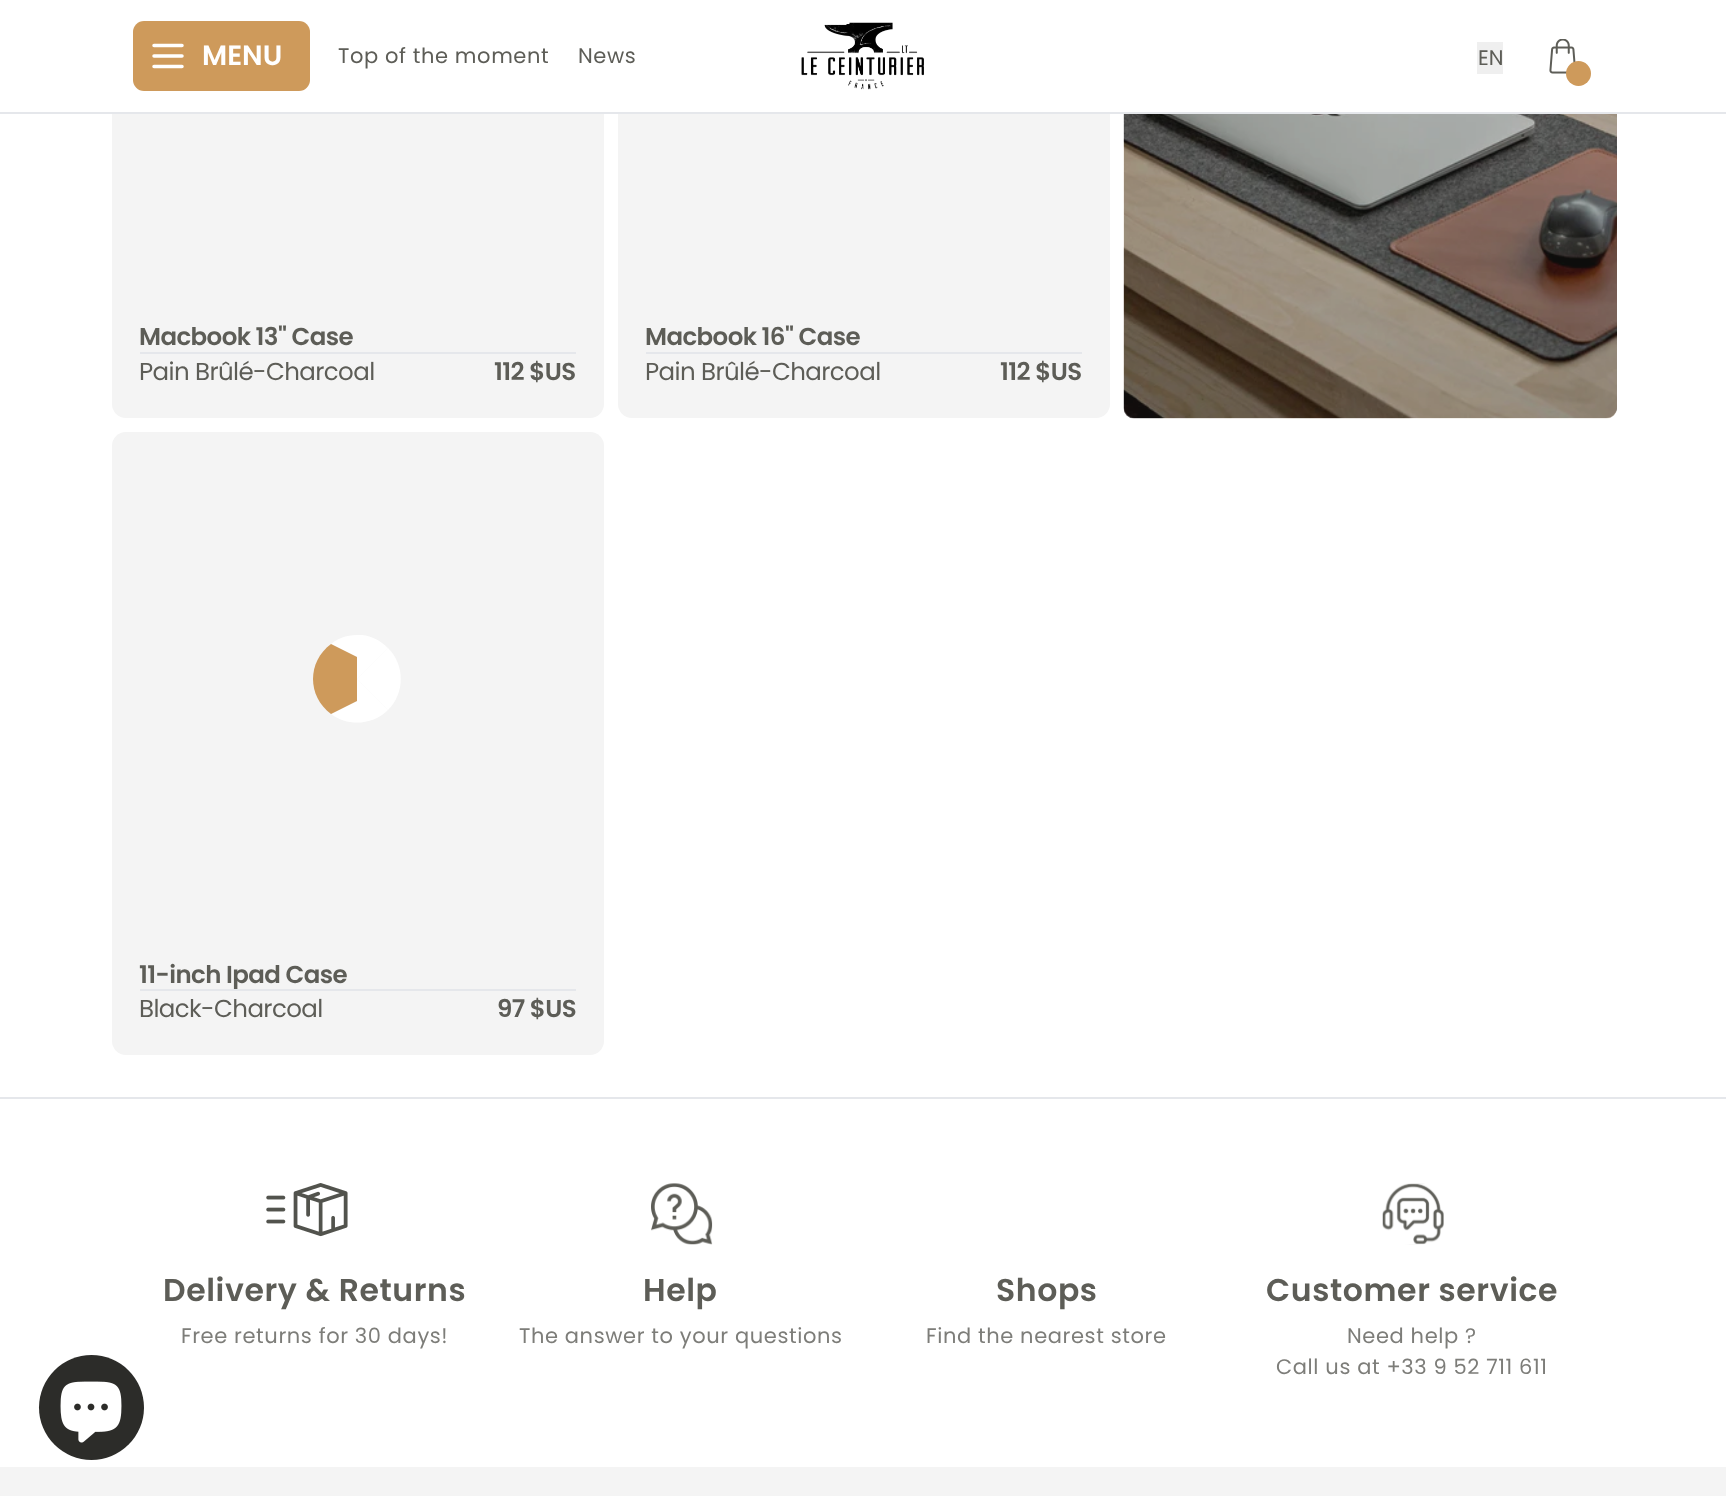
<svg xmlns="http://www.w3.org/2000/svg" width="1726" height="1496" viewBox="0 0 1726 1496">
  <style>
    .t1 { font: 600 28px Poppins; fill: #fff; }
    .t2 { font: 21px Poppins; letter-spacing: 0.6px; fill: #5d5d57; }
    .t3 { font: 21px Poppins; fill: #5d5d57; }
    .t4 { font: 600 24.5px Poppins; letter-spacing: -0.6px; fill: #5d5d57; }
    .t5 { font: 24.5px Poppins; letter-spacing: -0.6px; fill: #5d5d57; }
    .t6 { font: 600 31.5px Poppins; letter-spacing: 0.6px; fill: #5d5d57; }
    .t7 { font: 21px Poppins; letter-spacing: 0.6px; fill: #7d7d79; }
  </style>
  <rect width="100%" height="100%" fill="#fff"/>
  <rect x="112" y="-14" width="492" height="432" rx="14" fill="#f4f4f4"/>
  <rect x="618" y="-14" width="492" height="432" rx="14" fill="#f4f4f4"/>
  <rect x="1124" y="-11" width="493" height="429" rx="11" fill="#2c2c29"/>
  <rect x="112" y="0" width="1505" height="112" fill="#fff"/>
  <rect x="0" y="112" width="1726" height="2" fill="#e5e7eb"/>
  <rect x="133" y="21" width="177" height="70" rx="11" fill="#ce9a5b"/>
  <path d="M154 45.5H182M154 56H182M154 66.5H182" fill="none" stroke="#fff" stroke-width="3.5" stroke-linecap="round" stroke-linejoin="round"/>
  <text x="202" y="65" class="t1">MENU</text>
  <text x="338" y="63" class="t2">Top of the moment</text>
  <text x="578" y="63" class="t2">News</text>
  <image x="801" y="22" width="123" height="68" href="images/1.png"/>
  <rect x="1477" y="42" width="26" height="32" fill="#efefef"/>
  <text x="1478" y="65" class="t3">EN</text>
  <image x="1549" y="39" width="27" height="35" href="images/2.png"/>
  <circle cx="1578.5" cy="73.5" r="12.5" fill="#ce9a5b"/>
  <text x="139" y="345" class="t4">Macbook 13" Case</text>
  <rect x="140" y="352" width="436" height="2" fill="#e5e7eb"/>
  <text x="139" y="380" class="t5">Pain Brûlé-Charcoal</text>
  <text x="494" y="380" class="t4">112 $US</text>
  <text x="645" y="345" class="t4">Macbook 16" Case</text>
  <rect x="646" y="352" width="436" height="2" fill="#e5e7eb"/>
  <text x="645" y="380" class="t5">Pain Brûlé-Charcoal</text>
  <text x="1000" y="380" class="t4">112 $US</text>
  <image x="1123" y="114" width="494" height="305" href="images/3.png"/>
  <rect x="112" y="432" width="492" height="623" rx="14" fill="#f4f4f4"/>
  <path d="M362 635C349 635 341 636 331 644L357 657V679L388 648C381 641 372 636 362 635Z" fill="#fff"/>
  <path d="M388 648L357 679L388 710C405 693 405 665 388 648Z" fill="#fff"/>
  <path d="M388 710L357 679V701L331 714C348 727 373 725 388 710Z" fill="#fff"/>
  <path d="M331 714L357 701V657L331 644C307 662 307 696 331 714Z" fill="#ce9a5b"/>
  <text x="139" y="983" class="t4">11-inch Ipad Case</text>
  <rect x="140" y="989" width="436" height="2" fill="#e5e7eb"/>
  <text x="139" y="1017" class="t5">Black-Charcoal</text>
  <text x="497" y="1017" class="t4">97 $US</text>
  <rect x="0" y="1097" width="1726" height="2" fill="#e5e7eb"/>
  <image x="266" y="1183" width="82" height="54" href="images/4.png"/>
  <text x="163" y="1301" class="t6">Delivery &amp; Returns</text>
  <text x="181" y="1343" class="t7">Free returns for 30 days!</text>
  <image x="651" y="1183" width="62" height="62" href="images/5.png"/>
  <text x="643" y="1301" class="t6">Help</text>
  <text x="519" y="1343" class="t7">The answer to your questions</text>
  <text x="996" y="1301" class="t6">Shops</text>
  <text x="926" y="1343" class="t7">Find the nearest store</text>
  <image x="1382" y="1183" width="62" height="62" href="images/6.png"/>
  <text x="1266" y="1301" class="t6">Customer service</text>
  <text x="1347" y="1343" class="t7">Need help ?</text>
  <text x="1276" y="1374" class="t7">Call us at +33 9 52 711 611</text>
  <rect x="0" y="1467" width="1726" height="29" fill="#f4f4f4"/>
  <circle cx="91.5" cy="1407.5" r="52.5" fill="#2c2c29"/>
  <image x="60" y="1381" width="62" height="62" href="images/7.png"/>
</svg>
